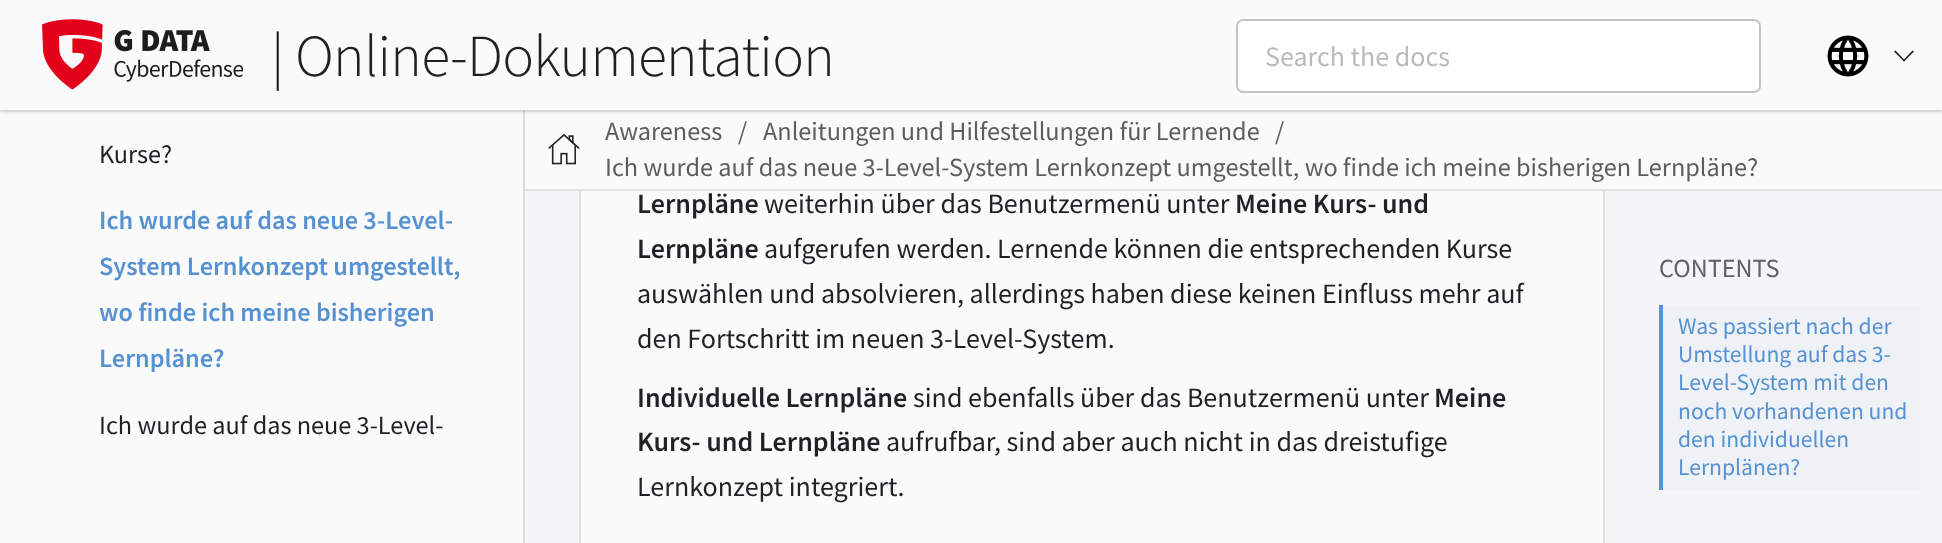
<svg xmlns="http://www.w3.org/2000/svg" width="1942" height="543" viewBox="0 0 1942 543">
  <style>
    .t1 { font: 300 59.5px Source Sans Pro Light; letter-spacing: -0.7px; fill: #1f2125; }
    .t2 { font: 28px Source Sans Pro; fill: #bababa; }
    .t3 { font: 26.25px Source Sans Pro; fill: #1f2125; }
    .t4 { font: 600 26.25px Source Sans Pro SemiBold; fill: #5691d1; }
    .t5 { font: 26.25px Source Sans Pro; fill: #5d5d5d; }
    .t6 { font: 600 28px Source Sans Pro SemiBold; fill: #1f2125; }
    .t7 { font: 28px Source Sans Pro; fill: #1f2125; }
    .t8 { font: 26.25px Source Sans Pro; fill: #5f6164; }
    .t9 { font: 23.6px Source Sans Pro; fill: #5691d1; }
  </style>
  <rect width="100%" height="100%" fill="#f4f5f7"/>
  <rect x="0" y="110" width="523" height="433" fill="#fafafa"/>
  <rect x="523" y="110" width="2" height="433" fill="#dcdcdc"/>
  <rect x="580" y="-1" width="1024" height="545" fill="none" stroke="#e8e9eb" stroke-width="2"/>
  <rect x="581" y="-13" width="1022" height="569" rx="7" fill="#0000001f" filter="blur(2px)"/>
  <rect x="525" y="110" width="1417" height="79" fill="#fafafa"/>
  <rect x="-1" y="-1" width="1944" height="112" fill="none" stroke="#0000000d" stroke-width="2"/>
  <rect x="0" y="2" width="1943" height="110" fill="#0000001f" filter="blur(2px)"/>
  <rect x="0" y="0" width="1942" height="110" fill="#fafafa"/>
  <image x="42" y="19" width="201" height="71" href="images/1.png"/>
  <text x="271" y="76" class="t1">| Online-Dokumentation</text>
  <rect x="1237" y="20" width="523" height="72" rx="6" fill="#fff" stroke="#c4c4c4" stroke-width="2"/>
  <text x="1265" y="66" class="t2">Search the docs</text>
  <image x="1827" y="35" width="42" height="42" href="images/2.png"/>
  <path d="M1903 60.5L1912.5 50.5L1914 51.5L1904 61.5Z" fill="#1f2125"/>
  <path d="M1894 51.5L1895.5 50.5L1905 60.5L1904 61.5Z" fill="#1f2125"/>
  <text x="99" y="163" class="t3">Kurse?</text>
  <text x="99" y="229" class="t4">Ich wurde auf das neue 3-Level-</text>
  <text x="99" y="275" class="t4">System Lernkonzept umgestellt,</text>
  <text x="99" y="321" class="t4">wo finde ich meine bisherigen</text>
  <text x="99" y="367" class="t4">Lernpläne?</text>
  <text x="99" y="434" class="t3">Ich wurde auf das neue 3-Level-</text>
  <path d="M525 189V191H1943V112H1942V189Z" fill="#e1e1e1"/>
  <image x="548" y="133" width="32" height="32" href="images/3.png"/>
  <text x="605" y="140" class="t5">Awareness</text>
  <text x="738" y="140" class="t5">/</text>
  <text x="763" y="140" class="t5">Anleitungen und Hilfestellungen für Lernende</text>
  <text x="1275" y="140" class="t5">/</text>
  <text x="605" y="176" class="t5">Ich wurde auf das neue 3-Level-System Lernkonzept umgestellt, wo finde ich meine bisherigen Lernpläne?</text>
  <rect x="581" y="191" width="1022" height="352" fill="#fafafa"/>
  <text x="637" y="213" class="t6">Lernpläne</text>
  <text x="764" y="213" class="t7">weiterhin über das Benutzermenü unter</text>
  <text x="1235" y="213" class="t6">Meine Kurs- und</text>
  <text x="637" y="258" class="t6">Lernpläne</text>
  <text x="764" y="258" class="t7">aufgerufen werden. Lernende können die entsprechenden Kurse</text>
  <text x="637" y="303" class="t7">auswählen und absolvieren, allerdings haben diese keinen Einfluss mehr auf</text>
  <text x="637" y="348" class="t7">den Fortschritt im neuen 3-Level-System.</text>
  <text x="637" y="407" class="t6">Individuelle Lernpläne</text>
  <text x="913" y="407" class="t7">sind ebenfalls über das Benutzermenü unter</text>
  <text x="1434" y="407" class="t6">Meine</text>
  <text x="637" y="451" class="t6">Kurs- und Lernpläne</text>
  <text x="886" y="451" class="t7">aufrufbar, sind aber auch nicht in das dreistufige</text>
  <text x="637" y="496" class="t7">Lernkonzept integriert.</text>
  <text x="1659" y="277" class="t8">CONTENTS</text>
  <rect x="1663" y="305" width="257" height="185" fill="#eef1f5"/>
  <rect x="1659" y="305" width="4" height="185" fill="#5691d1"/>
  <text x="1678" y="334" class="t9">Was passiert nach der</text>
  <text x="1678" y="362" class="t9">Umstellung auf das 3-</text>
  <text x="1678" y="390" class="t9">Level-System mit den</text>
  <text x="1678" y="419" class="t9">noch vorhandenen und</text>
  <text x="1678" y="447" class="t9">den individuellen</text>
  <text x="1678" y="475" class="t9">Lernplänen?</text>
</svg>
